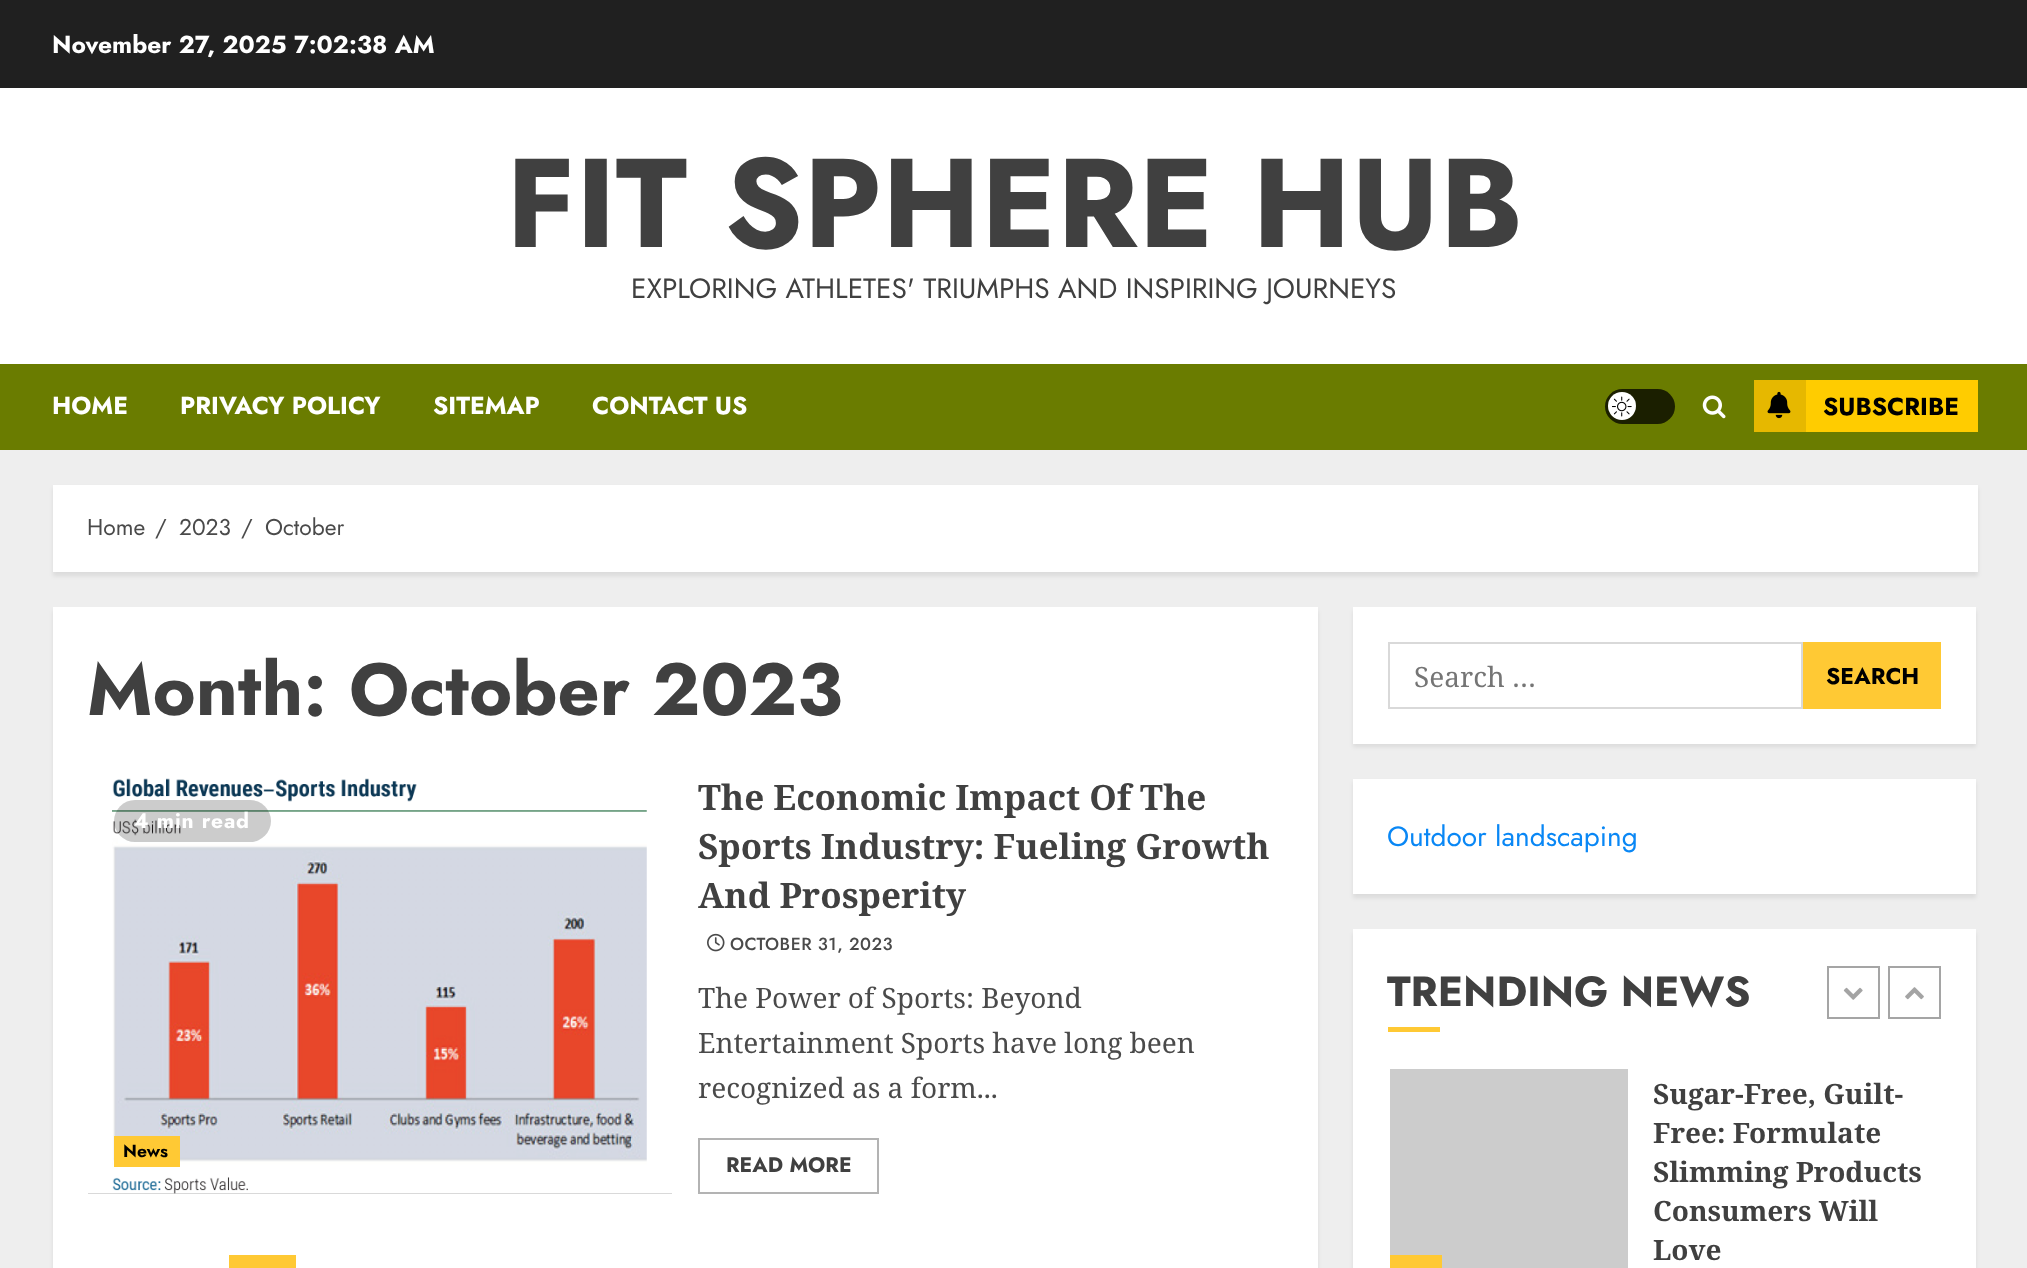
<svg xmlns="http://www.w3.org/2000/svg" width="2027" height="1268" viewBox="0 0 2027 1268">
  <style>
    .t1 { font: bold 24.5px Jost; fill: #fff; }
    .t2 { font: bold 126px Jost; fill: #404040; }
    .t3 { font: 28px Jost; fill: #404040; }
    .t4 { font: bold 24.5px Jost; fill: #000; }
    .t5 { font: 22.75px Jost; fill: #4a4a4a; }
    .t6 { font: bold 73.5px Jost; fill: #404040; }
    .t7 { font: bold 21px Jost; letter-spacing: 0.9px; fill: #fff; }
    .t8 { font: bold 17.5px Jost; fill: #000; }
    .t9 { font: bold 35px Noto Serif; fill: #404040; }
    .t10 { font: 500 17.5px Jost; letter-spacing: 0.5px; fill: #4a4a4a; }
    .t11 { font: 28px Noto Serif; fill: #4a4a4a; }
    .t12 { font: bold 21px Jost; fill: #404040; }
    .t13 { font: 28px Noto Serif; fill: #757575; }
    .t14 { font: bold 22.75px Jost; fill: #000; }
    .t15 { font: 28px Jost; fill: #0987f5; }
    .t16 { font: bold 42px Jost; fill: #404040; }
    .t17 { font: bold 28px Noto Serif; fill: #404040; }
  </style>
  <rect width="100%" height="100%" fill="#eee"/>
  <rect x="0" y="0" width="2027" height="88" fill="#202020"/>
  <text x="52" y="53" class="t1">November 27, 2025 7:02:38 AM</text>
  <rect x="0" y="88" width="2027" height="276" fill="#fff"/>
  <text x="506" y="247" class="t2">FIT SPHERE HUB</text>
  <text x="631" y="298" class="t3">EXPLORING ATHLETES' TRIUMPHS AND INSPIRING JOURNEYS</text>
  <rect x="0" y="364" width="2027" height="86" fill="#6a7c00"/>
  <text x="52" y="414" class="t1">HOME</text>
  <text x="180" y="414" class="t1">PRIVACY POLICY</text>
  <text x="433" y="414" class="t1">SITEMAP</text>
  <text x="592" y="414" class="t1">CONTACT US</text>
  <rect x="1605" y="389" width="70" height="35" rx="17.5" fill="#1b1f00"/>
  <circle cx="1622" cy="406" r="14" fill="#fff"/>
  <image x="1612" y="396" width="20" height="21" href="images/1.png"/>
  <image x="1702" y="395" width="24" height="24" href="images/2.png"/>
  <rect x="1806" y="380" width="172" height="52" fill="#fc0"/>
  <rect x="1754" y="380" width="52" height="52" fill="#e6b800"/>
  <image x="1767" y="391" width="24" height="28" href="images/3.png"/>
  <text x="1823" y="415" class="t4">SUBSCRIBE</text>
  <rect x="53" y="488" width="1925" height="88" fill="#00000014" filter="blur(2px)"/>
  <rect x="53" y="485" width="1925" height="87" fill="#fff"/>
  <text x="87" y="535" class="t5">Home</text>
  <text x="155" y="535" class="t5">/</text>
  <text x="179" y="535" class="t5">2023</text>
  <text x="241" y="535" class="t5">/</text>
  <text x="265" y="535" class="t5">October</text>
  <rect x="53" y="611" width="1265" height="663" fill="#00000014" filter="blur(2px)"/>
  <rect x="53" y="607" width="1265" height="661" fill="#fff"/>
  <text x="87" y="715" class="t6">Month: October 2023</text>
  <rect x="88" y="1193" width="584" height="1" fill="#ccc"/>
  <image x="88" y="774" width="584" height="420" href="images/4.png"/>
  <rect x="114" y="800" width="157" height="42" rx="21" fill="#00000033"/>
  <text x="134" y="828" class="t7">4 min read</text>
  <rect x="114" y="1136" width="66" height="31" fill="#ffc934"/>
  <text x="123" y="1157" class="t8">News</text>
  <text x="698" y="810" class="t9">The Economic Impact Of The</text>
  <text x="698" y="859" class="t9">Sports Industry: Fueling Growth</text>
  <text x="698" y="908" class="t9">And Prosperity</text>
  <image x="707" y="933" width="18" height="19" href="images/5.png"/>
  <text x="730" y="950" class="t10">OCTOBER 31, 2023</text>
  <text x="698" y="1008" class="t11">The Power of Sports: Beyond</text>
  <text x="698" y="1053" class="t11">Entertainment Sports have long been</text>
  <text x="698" y="1098" class="t11">recognized as a form...</text>
  <rect x="699" y="1139" width="179" height="54" fill="none" stroke="#b3b3b3" stroke-width="2"/>
  <text x="726" y="1172" class="t12">READ MORE</text>
  <rect x="229" y="1255" width="67" height="13" fill="#ffc934"/>
  <rect x="1353" y="611" width="623" height="136" fill="#00000014" filter="blur(2px)"/>
  <rect x="1353" y="607" width="623" height="137" fill="#fff"/>
  <rect x="1389" y="643" width="413" height="65" fill="none" stroke="#d9d9d9" stroke-width="2"/>
  <text x="1414" y="687" class="t13">Search …</text>
  <rect x="1803" y="642" width="138" height="67" fill="#ffc934"/>
  <text x="1826" y="684" class="t14">SEARCH</text>
  <rect x="1353" y="782" width="623" height="116" fill="#00000014" filter="blur(2px)"/>
  <rect x="1353" y="779" width="623" height="115" fill="#fff"/>
  <text x="1387" y="846" class="t15">Outdoor landscaping</text>
  <rect x="1353" y="933" width="623" height="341" fill="#00000014" filter="blur(2px)"/>
  <rect x="1353" y="929" width="623" height="339" fill="#fff"/>
  <text x="1387" y="1006" class="t16">TRENDING NEWS</text>
  <rect x="1388" y="1027" width="52" height="5" fill="#ffc934"/>
  <rect x="1828" y="967" width="51" height="51" fill="none" stroke="#a5a5a5" stroke-width="2"/>
  <image x="1843" y="987" width="20" height="13" href="images/6.png"/>
  <rect x="1889" y="967" width="51" height="51" fill="none" stroke="#a5a5a5" stroke-width="2"/>
  <image x="1905" y="987" width="19" height="13" href="images/7.png"/>
  <rect x="1390" y="1069" width="238" height="199" fill="#ccc"/>
  <rect x="1390" y="1255" width="52" height="13" fill="#ffc934"/>
  <text x="1653" y="1104" class="t17">Sugar-Free, Guilt-</text>
  <text x="1653" y="1143" class="t17">Free: Formulate</text>
  <text x="1653" y="1182" class="t17">Slimming Products</text>
  <text x="1653" y="1221" class="t17">Consumers Will</text>
  <text x="1653" y="1260" class="t17">Love</text>
</svg>
